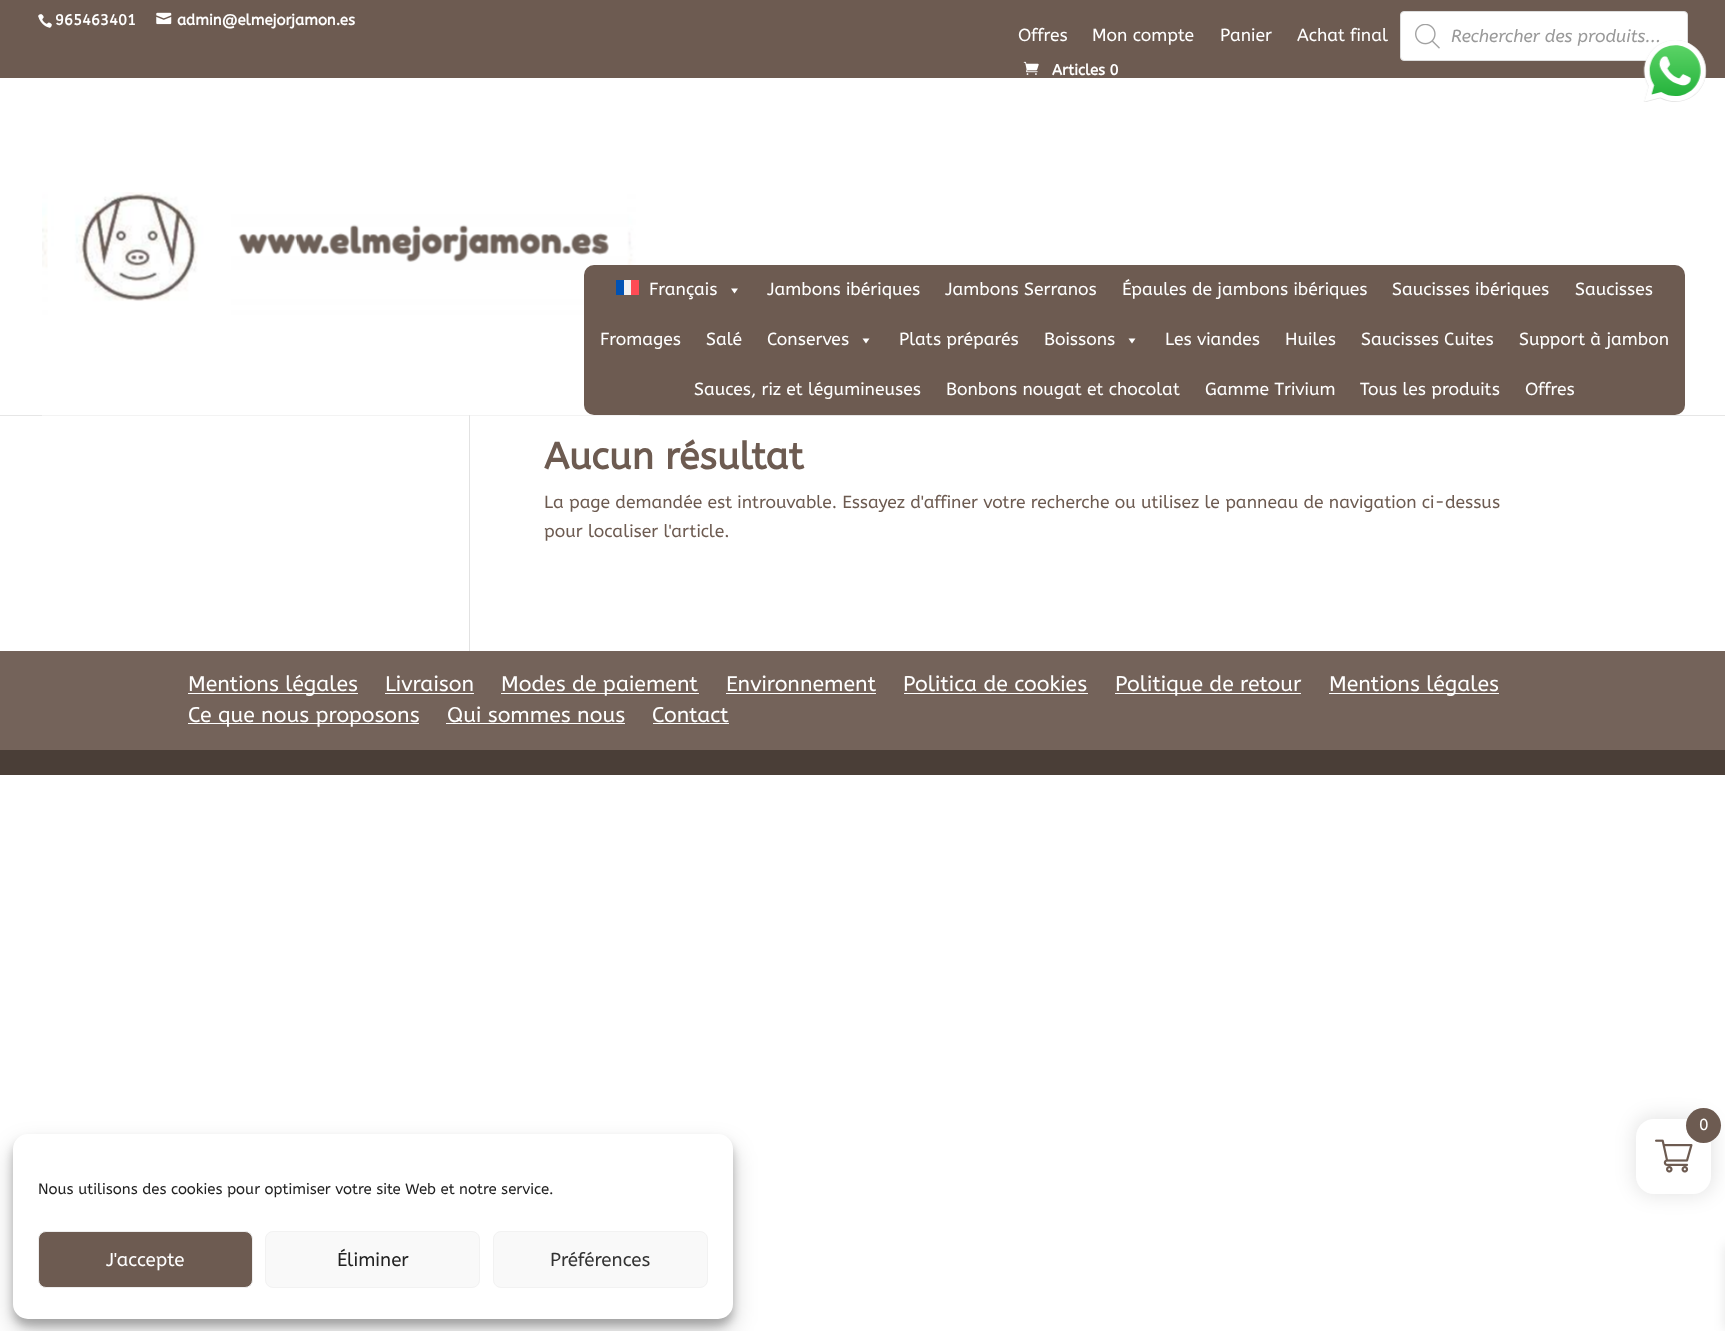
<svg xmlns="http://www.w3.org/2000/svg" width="1725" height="1331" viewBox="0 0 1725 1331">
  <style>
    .t1 { font: bold 15px ABeeZee; fill: #fff; }
    .t2 { font: 17.5px ABeeZee; fill: #fff; }
    .t3 { font: italic 17.5px ABeeZee; fill: #999; }
    .t4 { font: bold 37.5px ABeeZee; fill: #6d5b51; }
    .t5 { font: 17.5px ABeeZee; fill: #6d5b51; }
    .t6 { font: 21.25px ABeeZee; fill: #fff; }
    .t7 { font: 16px ABeeZee; fill: #fff; }
    .t8 { font: 15px ABeeZee; fill: #222; }
    .t9 { font: 18.75px ABeeZee; fill: #fff; }
    .t10 { font: 18.75px ABeeZee; fill: #222; }
    .t11 { font: 18.75px ABeeZee; fill: #333; }
  </style>
  <rect width="100%" height="100%" fill="#fff"/>
  <rect x="0" y="415" width="1725" height="1" fill="#e6e6e6"/>
  <rect x="0" y="0" width="1725" height="78" fill="#6d5b51"/>
  <image x="38" y="14" width="14" height="14" href="images/1.png"/>
  <text x="55" y="25" class="t1">965463401</text>
  <image x="156" y="12" width="16" height="13" href="images/2.png"/>
  <text x="177" y="25" class="t1">admin@elmejorjamon.es</text>
  <text x="1018" y="41" class="t2">Offres</text>
  <text x="1092" y="41" class="t2">Mon compte</text>
  <text x="1220" y="41" class="t2">Panier</text>
  <text x="1297" y="41" class="t2">Achat final</text>
  <rect x="1400.5" y="11.5" width="287" height="49" rx="3.5" fill="#fff" stroke="#ddd"/>
  <image x="1415" y="24" width="25" height="25" href="images/3.png"/>
  <text x="1451" y="42" class="t3">Rechercher des produits...</text>
  <image x="1023" y="61" width="16" height="14" href="images/4.png"/>
  <text x="1052" y="75" class="t1">Articles 0</text>
  <rect x="469" y="415" width="1" height="1" fill="#cbcbcb"/>
  <image x="42" y="192" width="598" height="224" href="images/5.png"/>
  <rect x="584" y="265" width="1101" height="150" rx="10" fill="#6d5b51"/>
  <rect x="616" y="280" width="8" height="15" fill="#0052b4"/>
  <rect x="624" y="280" width="7" height="15" fill="#f0f0f0"/>
  <rect x="631" y="280" width="8" height="15" fill="#ff4b55"/>
  <text x="649" y="295" class="t2">Français</text>
  <path d="M738 288.5L734.5 293.5L731 288.5Z" fill="#fff"/>
  <text x="767" y="295" class="t2">Jambons ibériques</text>
  <text x="945" y="295" class="t2">Jambons Serranos</text>
  <text x="1122" y="295" class="t2">Épaules de jambons ibériques</text>
  <text x="1392" y="295" class="t2">Saucisses ibériques</text>
  <text x="1575" y="295" class="t2">Saucisses</text>
  <text x="600" y="345" class="t2">Fromages</text>
  <text x="706" y="345" class="t2">Salé</text>
  <text x="767" y="345" class="t2">Conserves</text>
  <path d="M869.5 338.5L866 343.5L862.5 338.5Z" fill="#fff"/>
  <text x="899" y="345" class="t2">Plats préparés</text>
  <text x="1044" y="345" class="t2">Boissons</text>
  <path d="M1135.5 338.5L1132 343.5L1128.5 338.5Z" fill="#fff"/>
  <text x="1165" y="345" class="t2">Les viandes</text>
  <text x="1285" y="345" class="t2">Huiles</text>
  <text x="1361" y="345" class="t2">Saucisses Cuites</text>
  <text x="1519" y="345" class="t2">Support à jambon</text>
  <text x="694" y="395" class="t2">Sauces, riz et légumineuses</text>
  <text x="946" y="395" class="t2">Bonbons nougat et chocolat</text>
  <text x="1205" y="395" class="t2">Gamme Trivium</text>
  <text x="1360" y="395" class="t2">Tous les produits</text>
  <text x="1525" y="395" class="t2">Offres</text>
  <rect x="469" y="416" width="1" height="235" fill="#e2e2e2"/>
  <text x="544" y="469" class="t4">Aucun résultat</text>
  <text x="544" y="508" class="t5">La page demandée est introuvable. Essayez d'affiner votre recherche ou utilisez le panneau de navigation ci-dessus</text>
  <text x="544" y="537" class="t5">pour localiser l'article.</text>
  <rect x="0" y="651" width="1725" height="99" fill="#74635a"/>
  <rect x="188" y="693" width="170" height="1" fill="#fff"/>
  <text x="188" y="691" class="t6">Mentions légales</text>
  <text x="385" y="691" class="t6">Livraison</text>
  <rect x="385" y="693" width="89" height="1" fill="#fff"/>
  <rect x="501" y="693" width="198" height="1" fill="#fff"/>
  <text x="501" y="691" class="t6">Modes de paiement</text>
  <text x="726" y="691" class="t6">Environnement</text>
  <rect x="726" y="693" width="150" height="1" fill="#fff"/>
  <text x="903" y="691" class="t6">Politica de cookies</text>
  <rect x="904" y="693" width="184" height="1" fill="#fff"/>
  <rect x="1115" y="693" width="186" height="1" fill="#fff"/>
  <text x="1115" y="691" class="t6">Politique de retour</text>
  <rect x="1329" y="693" width="170" height="1" fill="#fff"/>
  <text x="1329" y="691" class="t6">Mentions légales</text>
  <rect x="188" y="723" width="231" height="1" fill="#fff"/>
  <text x="188" y="722" class="t6">Ce que nous proposons</text>
  <text x="447" y="722" class="t6">Qui sommes nous</text>
  <rect x="446" y="723" width="179" height="1" fill="#fff"/>
  <text x="652" y="722" class="t6">Contact</text>
  <rect x="653" y="723" width="76" height="1" fill="#fff"/>
  <rect x="0" y="750" width="1725" height="25" fill="#4a3e37"/>
  <image x="1643" y="40" width="64" height="62" href="images/6.png"/>
  <rect x="1634" y="1116" width="80" height="80" rx="20" fill="#0000001a" filter="blur(9.5px)"/>
  <rect x="1636" y="1119" width="75" height="75" rx="18" fill="#fff"/>
  <image x="1655" y="1139" width="38" height="34" href="images/7.png"/>
  <circle cx="1703.5" cy="1125.5" r="17.5" fill="#6d5b51"/>
  <text x="1699" y="1130" class="t7">0</text>
  <rect x="1725" y="1245" width="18" height="85" fill="#0000001a" filter="blur(6px)"/>
  <rect x="13" y="1141" width="720" height="185" rx="15" fill="#0000003b" filter="blur(4px)"/>
  <rect x="13" y="1146" width="720" height="185" rx="15" fill="#00000030" filter="blur(12.5px)"/>
  <rect x="13" y="1134" width="720" height="185" rx="15" fill="#fff"/>
  <text x="38" y="1194" class="t8">Nous utilisons des cookies pour optimiser votre site Web et notre service.</text>
  <rect x="38.5" y="1231.5" width="214" height="56" rx="7.5" fill="#6d5b51" stroke="#eee"/>
  <text x="106" y="1266" class="t9">J'accepte</text>
  <rect x="265.5" y="1231.5" width="214" height="56" rx="7.5" fill="#f9f9f9" stroke="#f2f2f2"/>
  <text x="337" y="1266" class="t10">Éliminer</text>
  <rect x="493.5" y="1231.5" width="214" height="56" rx="7.5" fill="#f9f9f9" stroke="#f2f2f2"/>
  <text x="550" y="1266" class="t11">Préférences</text>
</svg>
